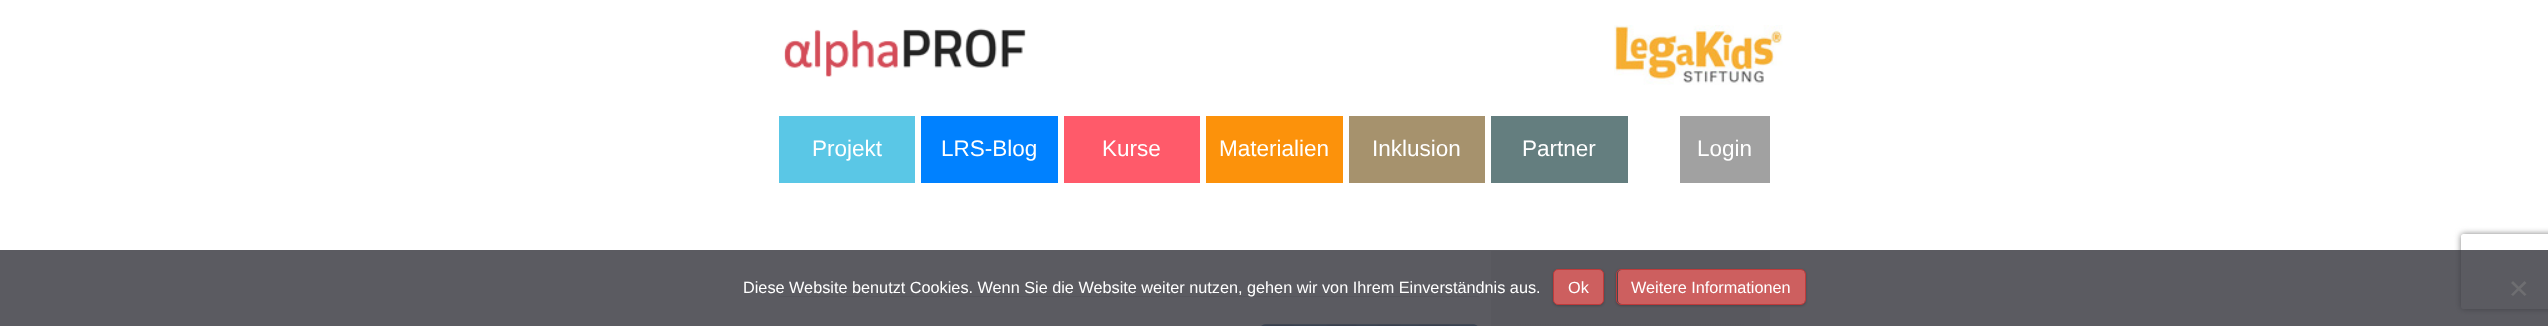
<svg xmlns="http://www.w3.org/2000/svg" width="2548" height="326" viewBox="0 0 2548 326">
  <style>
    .t1 { font: 22.5px Liberation Sans; fill: #fff; }
    .t2 { font: 16.25px Liberation Sans; fill: #fff; }
  </style>
  <defs>
    <clipPath id="clip1"><path d="M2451 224H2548V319H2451ZM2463.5 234H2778.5C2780 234 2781 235 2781 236.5V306.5C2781 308 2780 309 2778.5 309H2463.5C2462 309 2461 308 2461 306.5V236.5C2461 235 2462 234 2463.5 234Z" clip-rule="evenodd"/></clipPath>
  </defs>
  <rect width="100%" height="100%" fill="#fff"/>
  <image x="784" y="28" width="242" height="49" href="images/1.png"/>
  <image x="1614" y="25" width="169" height="60" href="images/2.png"/>
  <rect x="779" y="116" width="136" height="67" fill="#5ac7e6"/>
  <text x="812" y="156" class="t1">Projekt</text>
  <rect x="921" y="116" width="137" height="67" fill="#0081ff"/>
  <text x="941" y="156" class="t1">LRS-Blog</text>
  <rect x="1064" y="116" width="136" height="67" fill="#ff5a6a"/>
  <text x="1102" y="156" class="t1">Kurse</text>
  <rect x="1206" y="116" width="137" height="67" fill="#fc920b"/>
  <text x="1219" y="156" class="t1">Materialien</text>
  <rect x="1349" y="116" width="136" height="67" fill="#a6926d"/>
  <text x="1372" y="156" class="t1">Inklusion</text>
  <rect x="1491" y="116" width="137" height="67" fill="#647e7f"/>
  <text x="1522" y="156" class="t1">Partner</text>
  <rect x="1680" y="116" width="90" height="67" fill="#a1a1a1"/>
  <text x="1697" y="156" class="t1">Login</text>
  <rect x="779" y="296" width="700" height="1" fill="#e6e6e6"/>
  <image x="1261" y="323" width="217" height="3" href="images/3.png"/>
  <rect x="1491" y="251" width="279" height="75" fill="#f0f0f0"/>
  <path d="M1517.5 324.5H1744" fill="none" stroke="#e6e6e6" stroke-width="1.2" stroke-dasharray="1.25 1.25"/>
  <g clip-path="url(#clip1)">
    <rect x="2461" y="234" width="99" height="75" rx="2.5" fill="#808080" filter="blur(3px)"/>
  </g>
  <rect x="0" y="250" width="2548" height="76" fill="#32323acc"/>
  <text x="743" y="293" class="t2">Diese Website benutzt Cookies. Wenn Sie die Website weiter nutzen, gehen wir von Ihrem Einverständnis aus.</text>
  <rect x="1553" y="270" width="51" height="36" rx="5" fill="#00000033" filter="blur(1px)"/>
  <rect x="1553.5" y="269.5" width="50" height="35" rx="4.5" fill="#cd5f5f" stroke="#be3b3b"/>
  <text x="1568" y="293" class="t2">Ok</text>
  <rect x="1616" y="270" width="190" height="36" rx="5" fill="#00000033" filter="blur(1px)"/>
  <rect x="1618" y="270" width="187" height="34" rx="4" fill="#cd5f5f"/>
  <rect x="1616.5" y="269.5" width="189" height="35" rx="4.5" fill="none" stroke="#be3b3b"/>
  <text x="1631" y="293" class="t2">Weitere Informationen</text>
  <path d="M2524.5 281L2526.5 283L2513 296L2511 294.5Z" fill="#6e6e71"/>
  <path d="M2511 283L2513 281L2526.5 294.5L2524.5 296Z" fill="#6e6e71"/>
</svg>
